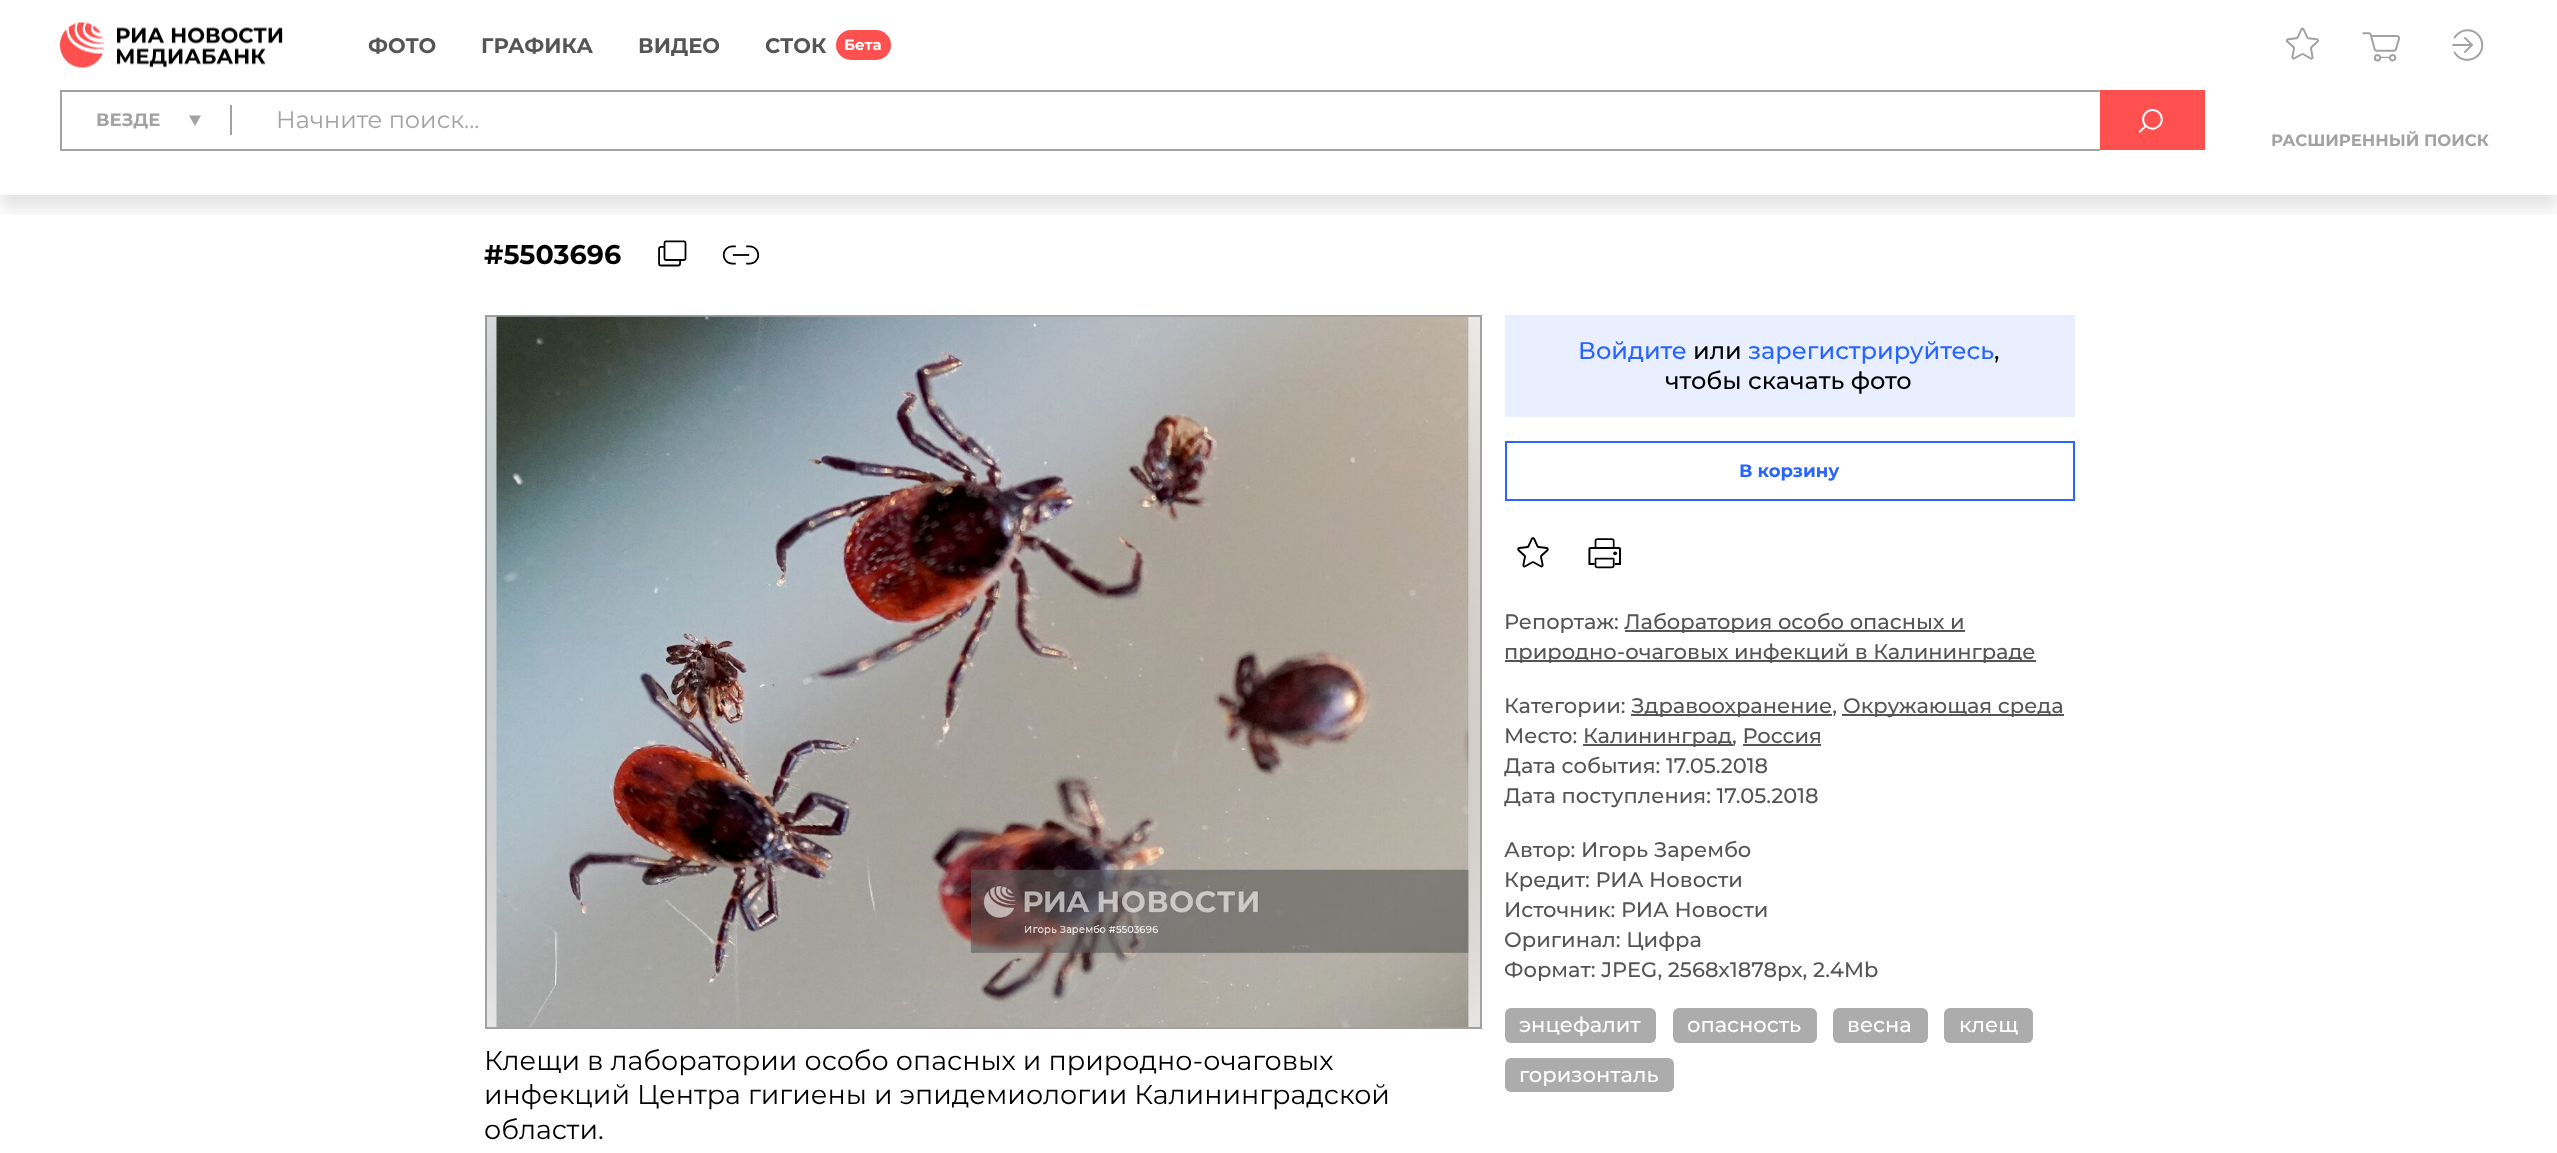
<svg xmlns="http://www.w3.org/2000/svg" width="2557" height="1153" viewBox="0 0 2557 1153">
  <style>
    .t1 { font: bold 21px Montserrat; fill: #555; }
    .t2 { font: bold 15px Montserrat; fill: #fff; }
    .t3 { font: bold 18px Montserrat; fill: #a3a2a2; }
    .t4 { font: 24px Montserrat; fill: #a3a2a2; }
    .t5 { font: bold 16.5px Montserrat; fill: #a3a2a2; }
    .t6 { font: bold 27px Montserrat; fill: #000; }
    .t7 { font: 27px Montserrat; fill: #000; }
    .t8 { font: 500 24px Montserrat; fill: #2864ff; }
    .t9 { font: 500 24px Montserrat; fill: #000; }
    .t10 { font: bold 18px Montserrat; fill: #2864ff; }
    .t11 { font: 500 21px Montserrat; fill: #555; }
    .t12 { font: 500 21px Montserrat; fill: #fff; }
  </style>
  <defs>
    <clipPath id="clip1"><rect x="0" y="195" width="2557" height="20"/></clipPath>
  </defs>
  <rect width="100%" height="100%" fill="#fff"/>
  <g clip-path="url(#clip1)">
    <rect x="0" y="14" width="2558" height="195" fill="#0000001a" filter="blur(7.5px)"/>
  </g>
  <image x="60" y="22" width="223" height="46" href="images/1.png"/>
  <text x="368" y="53" class="t1">ФОТО</text>
  <text x="481" y="53" class="t1">ГРАФИКА</text>
  <text x="638" y="53" class="t1">ВИДЕО</text>
  <text x="765" y="53" class="t1">СТОК</text>
  <rect x="836" y="30" width="55" height="30" rx="15" fill="#ff5050"/>
  <text x="844" y="50" class="t2">Бета</text>
  <image x="2285" y="27" width="34" height="33" href="images/2.png"/>
  <image x="2362" y="32" width="38" height="30" href="images/3.png"/>
  <image x="2452" y="29" width="32" height="32" href="images/4.png"/>
  <rect x="60" y="90" width="2040" height="2" fill="#a3a2a2"/>
  <rect x="60" y="149" width="2040" height="2" fill="#a3a2a2"/>
  <rect x="60" y="90" width="2" height="60" fill="#a3a2a2"/>
  <text x="96" y="126" class="t3">ВЕЗДЕ</text>
  <path d="M189 115.5H201L195 126Z" fill="#a3a2a2"/>
  <rect x="230" y="105" width="2" height="30" fill="#a3a2a2"/>
  <text x="276" y="128" class="t4">Начните поиск...</text>
  <rect x="2100" y="90" width="105" height="60" fill="#ff5050"/>
  <image x="2138" y="109" width="25" height="24" href="images/5.png"/>
  <text x="2271" y="146" class="t5">РАСШИРЕННЫЙ ПОИСК</text>
  <text x="484" y="264" class="t6">#5503696</text>
  <image x="658" y="240" width="29" height="27" href="images/6.png"/>
  <image x="722" y="245" width="38" height="20" href="images/7.png"/>
  <rect x="486" y="316" width="995" height="712" fill="none" stroke="#a3a2a2" stroke-width="2"/>
  <image x="486" y="316" width="995" height="712" href="images/8.png"/>
  <image x="496" y="316" width="973" height="712" href="images/9.png"/>
  <text x="484" y="1070" class="t7">Клещи в лаборатории особо опасных и природно-очаговых</text>
  <text x="484" y="1104" class="t7">инфекций Центра гигиены и эпидемиологии Калининградской</text>
  <text x="484" y="1139" class="t7">области.</text>
  <rect x="1505" y="315" width="570" height="102" fill="#e9efff"/>
  <text x="1578" y="359" class="t8">Войдите</text>
  <text x="1693" y="359" class="t9">или</text>
  <text x="1748" y="359" class="t8">зарегистрируйтесь</text>
  <text x="1994" y="359" class="t9">,</text>
  <text x="1665" y="389" class="t9">чтобы скачать фото</text>
  <rect x="1506" y="442" width="568" height="58" fill="none" stroke="#2864ff" stroke-width="2"/>
  <text x="1739" y="477" class="t10">В корзину</text>
  <image x="1517" y="537" width="32" height="31" href="images/10.png"/>
  <image x="1588" y="538" width="33" height="31" href="images/11.png"/>
  <text x="1504" y="629" class="t11">Репортаж:</text>
  <rect x="1625" y="630" width="340" height="2" fill="#555"/>
  <text x="1624" y="629" class="t11">Лаборатория особо опасных и</text>
  <rect x="1505" y="660" width="531" height="2" fill="#555"/>
  <text x="1504" y="659" class="t11">природно-очаговых инфекций в Калининграде</text>
  <text x="1504" y="713" class="t11">Категории:</text>
  <rect x="1631" y="714" width="201" height="2" fill="#555"/>
  <text x="1631" y="713" class="t11">Здравоохранение,</text>
  <rect x="1842" y="714" width="222" height="2" fill="#555"/>
  <text x="1843" y="713" class="t11">Окружающая среда</text>
  <text x="1504" y="743" class="t11">Место:</text>
  <rect x="1583" y="744" width="150" height="2" fill="#555"/>
  <text x="1583" y="743" class="t11">Калининград, Россия</text>
  <rect x="1743" y="744" width="78" height="2" fill="#555"/>
  <text x="1504" y="773" class="t11">Дата события: 17.05.2018</text>
  <text x="1504" y="803" class="t11">Дата поступления: 17.05.2018</text>
  <text x="1504" y="857" class="t11">Автор: Игорь Зарембо</text>
  <text x="1504" y="887" class="t11">Кредит: РИА Новости</text>
  <text x="1504" y="917" class="t11">Источник: РИА Новости</text>
  <text x="1504" y="947" class="t11">Оригинал: Цифра</text>
  <text x="1504" y="977" class="t11">Формат: JPEG, 2568x1878px, 2.4Mb</text>
  <rect x="1505" y="1008" width="151" height="35" rx="6" fill="#acacac"/>
  <text x="1519" y="1032" class="t12">энцефалит</text>
  <rect x="1673" y="1008" width="144" height="35" rx="6" fill="#acacac"/>
  <text x="1687" y="1032" class="t12">опасность</text>
  <rect x="1833" y="1008" width="95" height="35" rx="6" fill="#acacac"/>
  <text x="1847" y="1032" class="t12">весна</text>
  <rect x="1944" y="1008" width="89" height="35" rx="6" fill="#acacac"/>
  <text x="1959" y="1032" class="t12">клещ</text>
  <rect x="1505" y="1058" width="169" height="34" rx="6" fill="#acacac"/>
  <text x="1519" y="1082" class="t12">горизонталь</text>
</svg>
